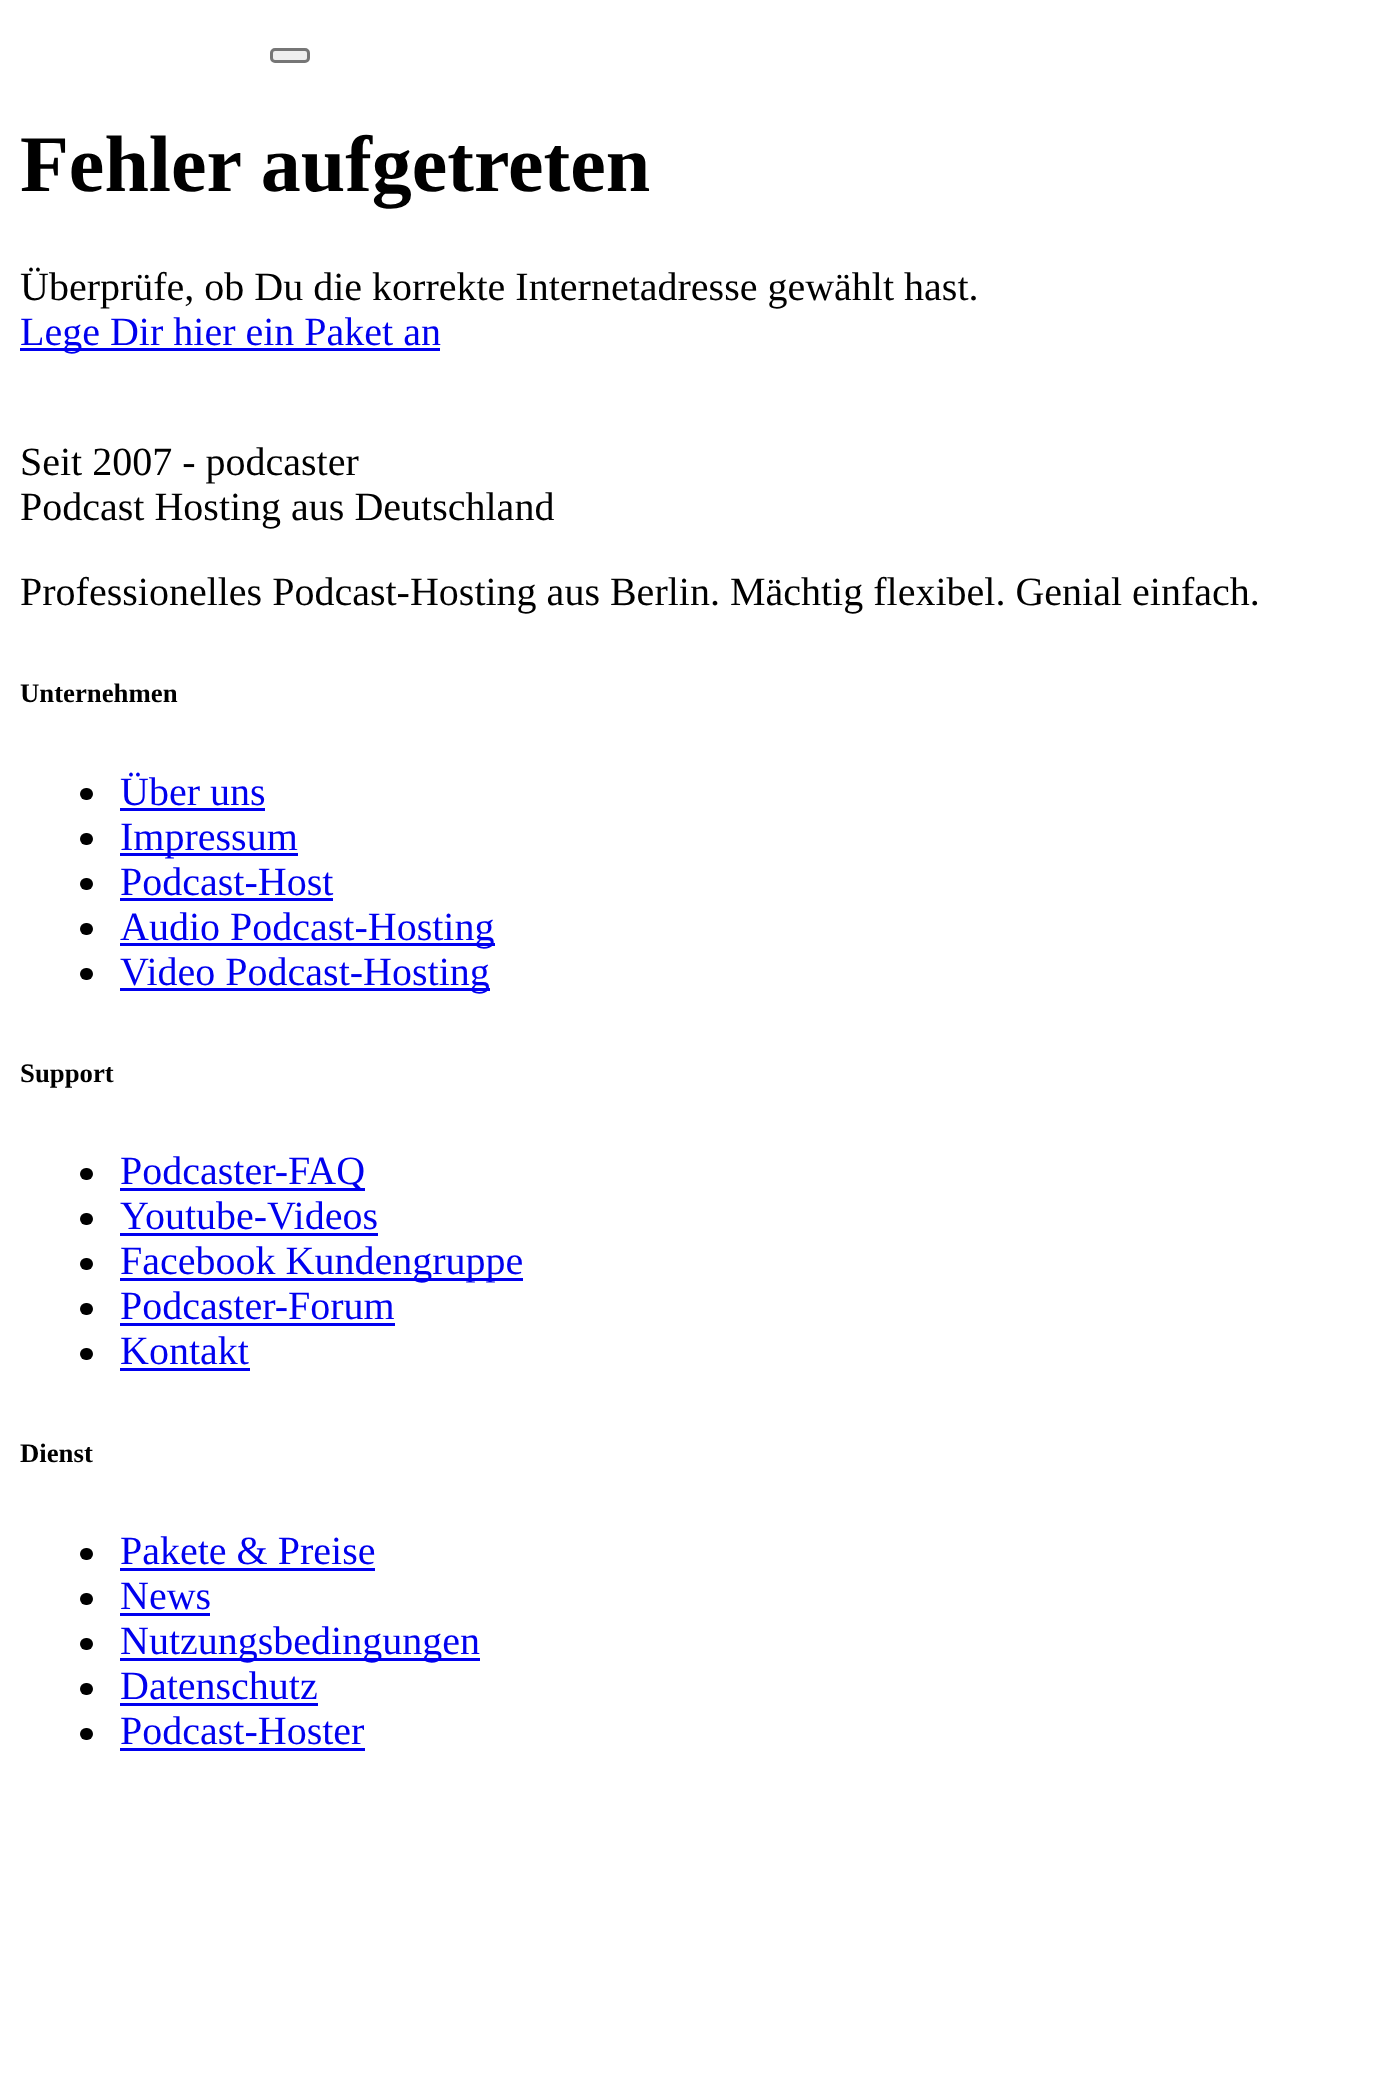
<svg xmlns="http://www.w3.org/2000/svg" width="1385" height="2081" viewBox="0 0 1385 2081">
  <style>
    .t1 { font: bold 80px Liberation Serif; fill: #000; }
    .t2 { font: 40px Liberation Serif; fill: #000; }
    .t3 { font: 40px Liberation Serif; fill: #00e; }
    .t4 { font: bold 26.75px Liberation Serif; fill: #000; }
  </style>
  <rect width="100%" height="100%" fill="#fff"/>
  <rect x="271.5" y="49.5" width="37" height="12" rx="3.5" fill="#efefef" stroke="#767676" stroke-width="3"/>
  <text x="20" y="191" class="t1">Fehler aufgetreten</text>
  <text x="20" y="300" class="t2">Überprüfe, ob Du die korrekte Internetadresse gewählt hast.</text>
  <rect x="20" y="348" width="420" height="3" fill="#00e"/>
  <text x="20" y="345" class="t3">Lege Dir hier ein Paket an</text>
  <text x="20" y="475" class="t2">Seit 2007 - podcaster</text>
  <text x="20" y="520" class="t2">Podcast Hosting aus Deutschland</text>
  <text x="20" y="605" class="t2">Professionelles Podcast-Hosting aus Berlin. Mächtig flexibel. Genial einfach.</text>
  <text x="20" y="702" class="t4">Unternehmen</text>
  <rect x="80" y="788" width="13" height="12" rx="6" fill="#000"/>
  <text x="120" y="805" class="t3">Über uns</text>
  <rect x="120" y="808" width="145" height="3" fill="#00e"/>
  <rect x="80" y="833" width="13" height="12" rx="6" fill="#000"/>
  <rect x="120" y="853" width="178" height="3" fill="#00e"/>
  <text x="120" y="850" class="t3">Impressum</text>
  <rect x="80" y="878" width="13" height="12" rx="6" fill="#000"/>
  <text x="120" y="895" class="t3">Podcast-Host</text>
  <rect x="120" y="898" width="213" height="3" fill="#00e"/>
  <rect x="80" y="923" width="13" height="12" rx="6" fill="#000"/>
  <rect x="120" y="943" width="375" height="3" fill="#00e"/>
  <text x="120" y="940" class="t3">Audio Podcast-Hosting</text>
  <rect x="80" y="968" width="13" height="12" rx="6" fill="#000"/>
  <rect x="120" y="988" width="370" height="3" fill="#00e"/>
  <text x="120" y="985" class="t3">Video Podcast-Hosting</text>
  <text x="20" y="1082" class="t4">Support</text>
  <rect x="80" y="1168" width="13" height="12" rx="6" fill="#000"/>
  <rect x="120" y="1188" width="245" height="3" fill="#00e"/>
  <text x="120" y="1184" class="t3">Podcaster-FAQ</text>
  <rect x="80" y="1213" width="13" height="12" rx="6" fill="#000"/>
  <text x="120" y="1229" class="t3">Youtube-Videos</text>
  <rect x="120" y="1233" width="258" height="3" fill="#00e"/>
  <rect x="80" y="1258" width="13" height="12" rx="6" fill="#000"/>
  <rect x="120" y="1278" width="403" height="3" fill="#00e"/>
  <text x="120" y="1274" class="t3">Facebook Kundengruppe</text>
  <rect x="80" y="1303" width="13" height="12" rx="6" fill="#000"/>
  <text x="120" y="1319" class="t3">Podcaster-Forum</text>
  <rect x="120" y="1323" width="275" height="3" fill="#00e"/>
  <rect x="80" y="1348" width="13" height="12" rx="6" fill="#000"/>
  <text x="120" y="1364" class="t3">Kontakt</text>
  <rect x="120" y="1368" width="130" height="3" fill="#00e"/>
  <text x="20" y="1462" class="t4">Dienst</text>
  <rect x="80" y="1548" width="13" height="12" rx="6" fill="#000"/>
  <text x="120" y="1564" class="t3">Pakete &amp; Preise</text>
  <rect x="120" y="1568" width="255" height="3" fill="#00e"/>
  <rect x="80" y="1593" width="13" height="12" rx="6" fill="#000"/>
  <text x="120" y="1609" class="t3">News</text>
  <rect x="120" y="1613" width="90" height="3" fill="#00e"/>
  <rect x="80" y="1638" width="13" height="12" rx="6" fill="#000"/>
  <rect x="120" y="1658" width="360" height="3" fill="#00e"/>
  <text x="120" y="1654" class="t3">Nutzungsbedingungen</text>
  <rect x="80" y="1683" width="13" height="12" rx="6" fill="#000"/>
  <text x="120" y="1699" class="t3">Datenschutz</text>
  <rect x="120" y="1703" width="198" height="3" fill="#00e"/>
  <rect x="80" y="1728" width="13" height="12" rx="6" fill="#000"/>
  <text x="120" y="1744" class="t3">Podcast-Hoster</text>
  <rect x="120" y="1748" width="245" height="3" fill="#00e"/>
</svg>
